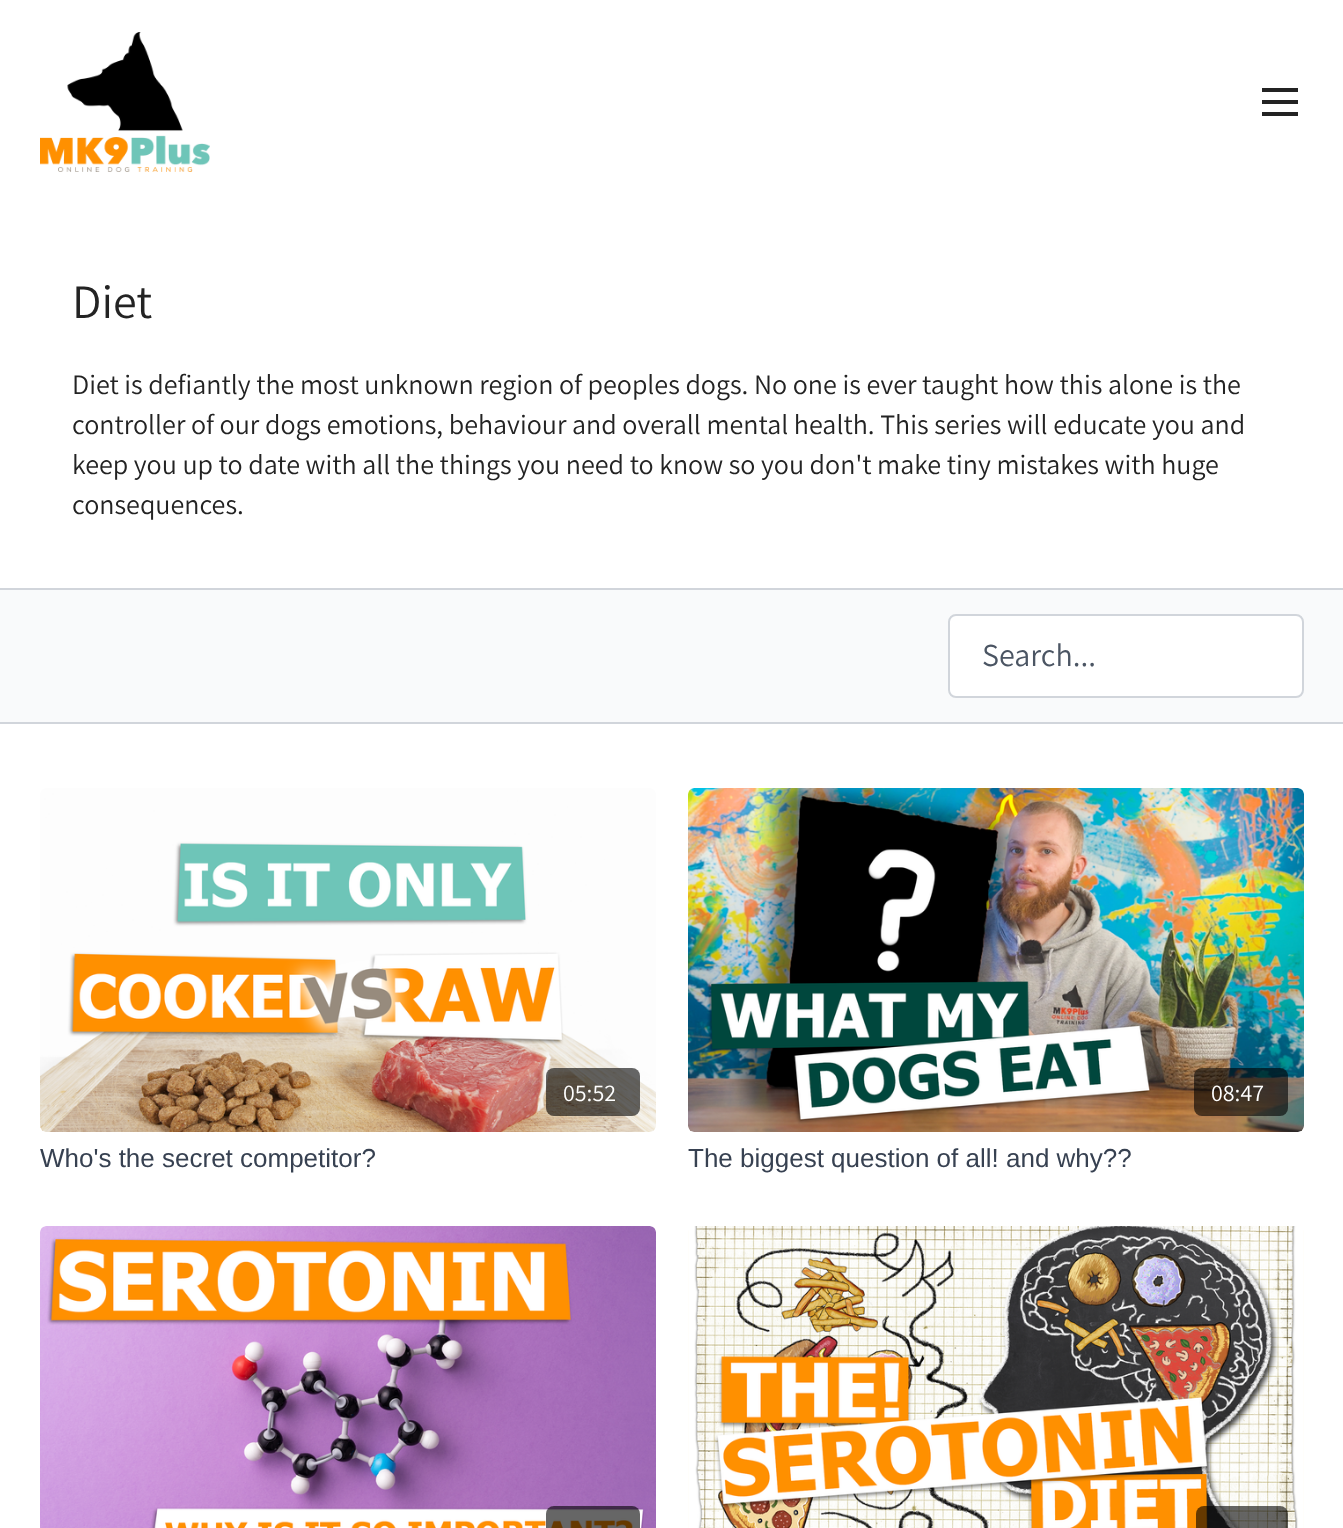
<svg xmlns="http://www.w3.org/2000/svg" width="1343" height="1528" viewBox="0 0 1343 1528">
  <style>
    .t1 { font: 48px Assistant; fill: #232323; }
    .t2 { font: 28px Assistant; fill: #232323; }
    .t3 { font: 32px Assistant; fill: #4b5563; }
    .t4 { font: 24px Assistant; fill: #fff; }
    .t5 { font: 26px Liberation Sans; fill: #374151; }
  </style>
  <rect width="100%" height="100%" fill="#fff"/>
  <image x="40" y="32" width="170" height="140" href="images/1.png"/>
  <rect x="1262" y="88" width="36" height="4" fill="#232323"/>
  <rect x="1262" y="100" width="36" height="4" fill="#232323"/>
  <rect x="1262" y="112" width="36" height="4" fill="#232323"/>
  <rect x="0" y="588" width="1343" height="2" fill="#d1d5db"/>
  <text x="72" y="318" class="t1">Diet</text>
  <text x="72" y="394" class="t2">Diet is defiantly the most unknown region of peoples dogs. No one is ever taught how this alone is the</text>
  <text x="72" y="434" class="t2">controller of our dogs emotions, behaviour and overall mental health. This series will educate you and</text>
  <text x="72" y="474" class="t2">keep you up to date with all the things you need to know so you don't make tiny mistakes with huge</text>
  <text x="72" y="514" class="t2">consequences.</text>
  <rect x="0" y="590" width="1343" height="132" fill="#f9fafb"/>
  <rect x="0" y="722" width="1343" height="2" fill="#d1d5db"/>
  <rect x="949" y="615" width="354" height="82" rx="7" fill="#fff" stroke="#d1d5db" stroke-width="2"/>
  <text x="982" y="666" class="t3">Search...</text>
  <image x="40" y="788" width="616" height="344" href="images/2.png"/>
  <rect x="546" y="1068" width="94" height="48" rx="8" fill="#00000099"/>
  <text x="563" y="1101" class="t4">05:52</text>
  <text x="40" y="1167" class="t5">Who's the secret competitor?</text>
  <image x="688" y="788" width="616" height="344" href="images/3.png"/>
  <rect x="1194" y="1068" width="94" height="48" rx="8" fill="#00000099"/>
  <text x="1211" y="1101" class="t4">08:47</text>
  <text x="688" y="1167" class="t5">The biggest question of all! and why??</text>
  <image x="40" y="1226" width="616" height="302" href="images/4.png"/>
  <rect x="546" y="1506" width="94" height="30" rx="8" fill="#00000099"/>
  <image x="688" y="1226" width="616" height="302" href="images/5.png"/>
  <rect x="1196" y="1506" width="92" height="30" rx="8" fill="#00000099"/>
</svg>
